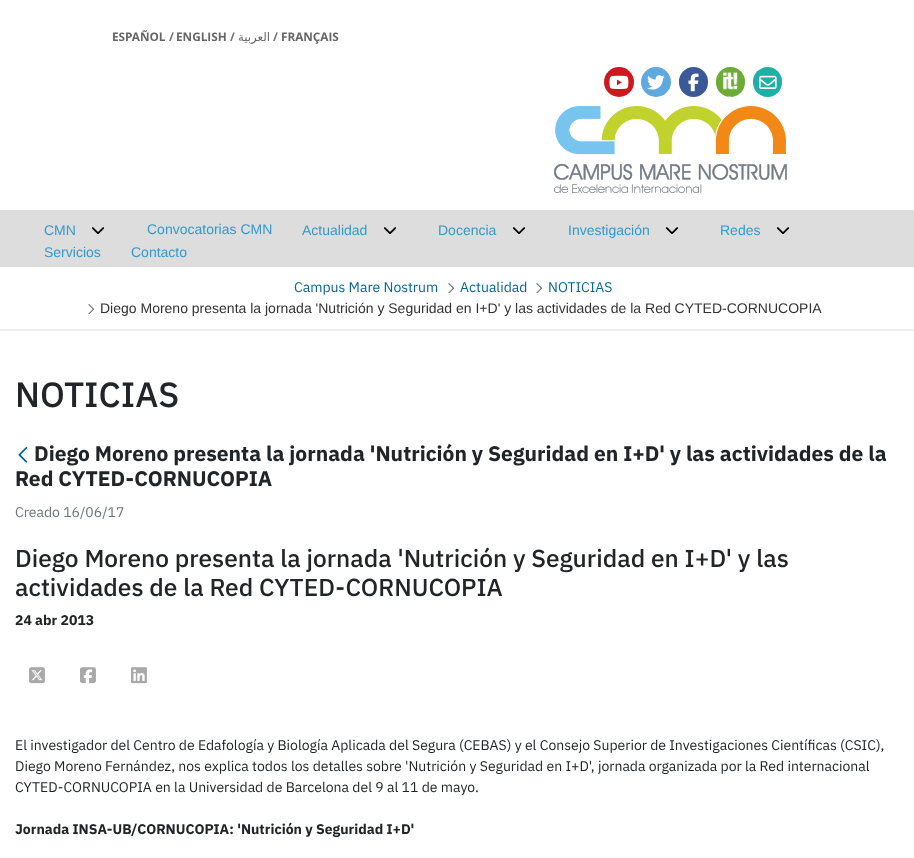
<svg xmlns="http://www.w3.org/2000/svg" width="914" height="858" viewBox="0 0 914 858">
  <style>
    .t1 { font: bold 11.75px Open Sans; fill: #666; }
    .t2 { font: bold 11.75px Open Sans; fill: #737373; }
    .t3 { font: 11.75px DejaVu Sans; direction: rtl; fill: #666; }
    .t4 { font: 14px Liberation Sans; fill: #3399cb; }
    .t5 { font: 14px IBM Plex Sans; fill: #066593; }
    .t6 { font: 14px Liberation Sans; fill: #333; }
    .t7 { font: 500 35px IBM Plex Sans; fill: #212529; }
    .t8 { font: bold 21px IBM Plex Sans; fill: #212529; }
    .t9 { font: 14px IBM Plex Sans; fill: #6c757d; }
    .t10 { font: 500 24.5px IBM Plex Sans; fill: #212529; }
    .t11 { font: bold 14px IBM Plex Sans; fill: #212529; }
    .t12 { font: 14px IBM Plex Sans; fill: #212529; }
  </style>
  <rect width="100%" height="100%" fill="#fff"/>
  <text x="112" y="41" class="t1">ESPAÑOL</text>
  <text x="169" y="41" class="t2">/</text>
  <text x="176" y="41" class="t1">ENGLISH</text>
  <text x="230" y="41" class="t2">/</text>
  <text x="270" y="41" class="t3">العربية</text>
  <text x="273" y="41" class="t2">/</text>
  <text x="281" y="41" class="t1">FRANÇAIS</text>
  <circle cx="619" cy="82" r="15" fill="#cc181e"/>
  <image x="609" y="75" width="20" height="14" href="images/1.png"/>
  <circle cx="656" cy="82" r="15" fill="#5ea9dd"/>
  <image x="647" y="75" width="18" height="15" href="images/2.png"/>
  <rect x="679" y="67" width="29" height="30" rx="14.5" fill="#3b5999"/>
  <image x="688" y="73" width="11" height="19" href="images/3.png"/>
  <image x="716" y="67" width="29" height="30" href="images/4.png"/>
  <rect x="753" y="67" width="29" height="30" rx="14.5" fill="#1cb0a7"/>
  <image x="759" y="75" width="18" height="14" href="images/5.png"/>
  <image x="554" y="105" width="233" height="88" href="images/6.png"/>
  <rect x="0" y="210" width="914" height="57" fill="#ddd"/>
  <text x="44" y="235" class="t4">CMN</text>
  <image x="92" y="227" width="12" height="7" href="images/7.png"/>
  <text x="147" y="234" class="t4">Convocatorias CMN</text>
  <text x="302" y="235" class="t4">Actualidad</text>
  <image x="384" y="227" width="12" height="7" href="images/7.png"/>
  <text x="438" y="235" class="t4">Docencia</text>
  <image x="513" y="227" width="12" height="7" href="images/7.png"/>
  <text x="568" y="235" class="t4">Investigación</text>
  <image x="666" y="227" width="12" height="7" href="images/7.png"/>
  <text x="720" y="235" class="t4">Redes</text>
  <image x="777" y="227" width="12" height="7" href="images/7.png"/>
  <text x="44" y="257" class="t4">Servicios</text>
  <text x="131" y="257" class="t4">Contacto</text>
  <text x="294" y="292" class="t5">Campus Mare Nostrum</text>
  <image x="448" y="283" width="7" height="10" href="images/8.png"/>
  <text x="460" y="292" class="t5">Actualidad</text>
  <image x="536" y="283" width="7" height="10" href="images/8.png"/>
  <text x="548" y="292" class="t5">NOTICIAS</text>
  <image x="88" y="304" width="7" height="10" href="images/8.png"/>
  <text x="100" y="313" class="t6">Diego Moreno presenta la jornada 'Nutrición y Seguridad en I+D' y las actividades de la Red CYTED-CORNUCOPIA</text>
  <rect x="0" y="329" width="914" height="2" fill="#eee"/>
  <text x="15" y="407" class="t7">NOTICIAS</text>
  <image x="18" y="447" width="10" height="16" href="images/9.png"/>
  <text x="34" y="461" class="t8">Diego Moreno presenta la jornada 'Nutrición y Seguridad en I+D' y las actividades de la</text>
  <text x="15" y="486" class="t8">Red CYTED-CORNUCOPIA</text>
  <text x="15" y="517" class="t9">Creado 16/06/17</text>
  <text x="15" y="567" class="t10">Diego Moreno presenta la jornada 'Nutrición y Seguridad en I+D' y las</text>
  <text x="15" y="596" class="t10">actividades de la Red CYTED-CORNUCOPIA</text>
  <text x="15" y="625" class="t11">24 abr 2013</text>
  <image x="29" y="667" width="16" height="17" href="images/10.png"/>
  <image x="80" y="667" width="16" height="17" href="images/11.png"/>
  <image x="131" y="667" width="16" height="17" href="images/12.png"/>
  <text x="15" y="750" class="t12">El investigador del Centro de Edafología y Biología Aplicada del Segura (CEBAS) y el Consejo Superior de Investigaciones Científicas (CSIC),</text>
  <text x="15" y="771" class="t12">Diego Moreno Fernández, nos explica todos los detalles sobre 'Nutrición y Seguridad en I+D', jornada organizada por la Red internacional</text>
  <text x="15" y="792" class="t12">CYTED-CORNUCOPIA en la Universidad de Barcelona del 9 al 11 de mayo.</text>
  <text x="15" y="834" class="t11">Jornada INSA-UB/CORNUCOPIA: 'Nutrición y Seguridad I+D'</text>
</svg>
